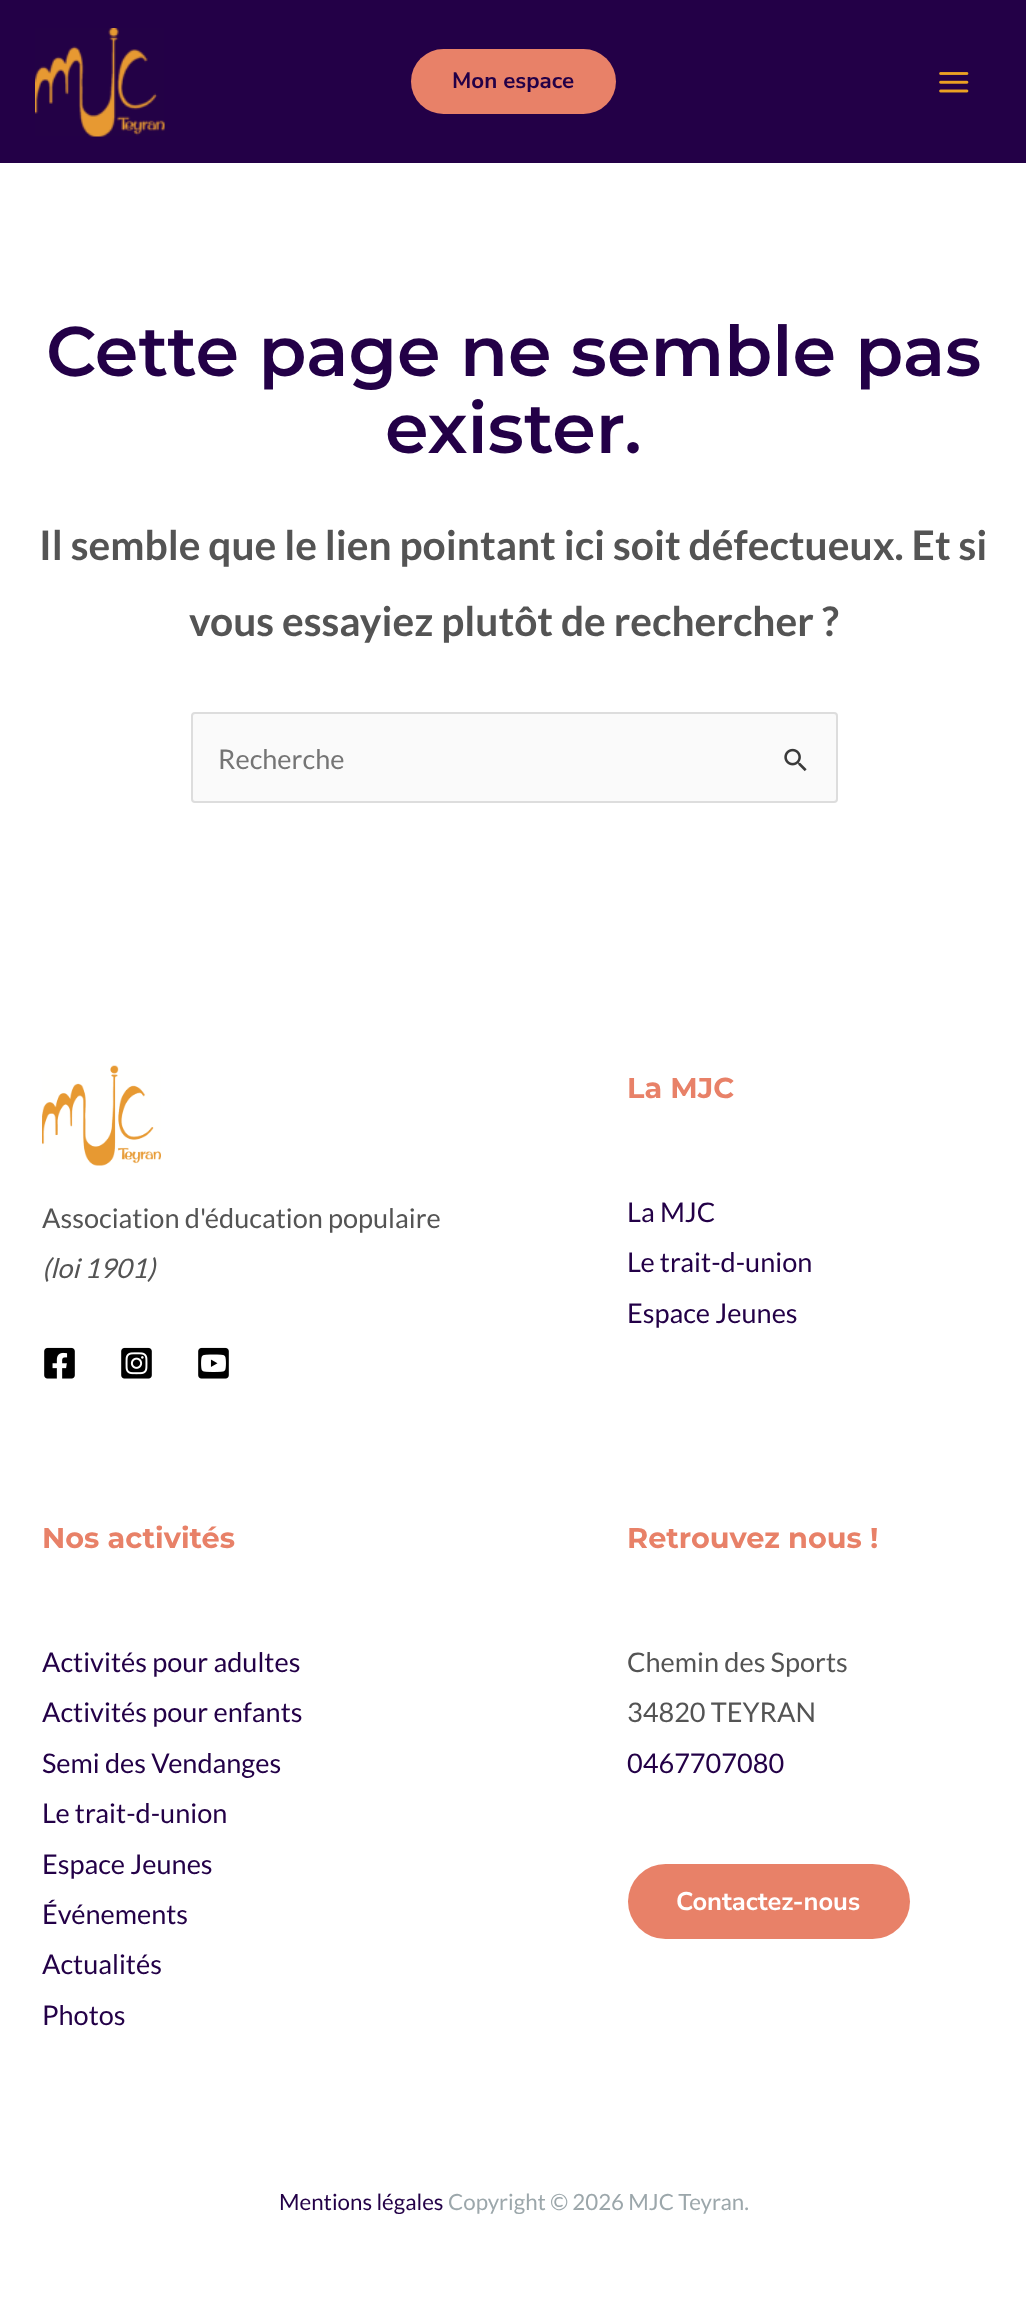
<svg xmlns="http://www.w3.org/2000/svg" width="1026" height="2311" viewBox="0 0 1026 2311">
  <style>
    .t1 { font: 200 22.3px Nunito Sans; fill: #230047; }
    .t2 { font: 600 70px Montserrat; fill: #230047; }
    .t3 { font: bold 40.7px Lato; fill: #545454; }
    .t4 { font: 27.1px Lato; fill: #757575; }
    .t5 { font: 27.1px Lato; fill: #545454; }
    .t6 { font: italic 27.1px Lato; fill: #545454; }
    .t7 { font: bold 28.75px Montserrat; fill: #e88168; }
    .t8 { font: 27.1px Lato; fill: #230047; }
    .t9 { font: 200 25.5px Nunito Sans; fill: #fff; }
    .t10 { font: 22.3px Lato; fill: #230047; }
    .t11 { font: 22.3px Lato; fill: #9ca7ab; }
  </style>
  <rect width="100%" height="100%" fill="#fff"/>
  <rect x="0" y="0" width="1026" height="163" fill="#230047"/>
  <image x="35" y="28" width="130" height="109" href="images/1.png"/>
  <rect x="411" y="49" width="205" height="65" rx="32.5" fill="#e88168"/>
  <text x="452" y="88" class="t1">Mon espace</text>
  <image x="939" y="72" width="30" height="21" href="images/2.png"/>
  <text x="46" y="376" class="t2">Cette page ne semble pas</text>
  <text x="385" y="453" class="t2">exister.</text>
  <text x="39" y="560" class="t3">Il semble que le lien pointant ici soit défectueux. Et si</text>
  <text x="189" y="636" class="t3">vous essayiez plutôt de rechercher ?</text>
  <rect x="192" y="713" width="645" height="89" rx="3" fill="#fafafa" stroke="#ddd" stroke-width="2"/>
  <text x="218" y="769" class="t4">Recherche</text>
  <image x="784" y="748" width="23" height="24" href="images/3.png"/>
  <image x="42" y="1065" width="119" height="101" href="images/4.png"/>
  <text x="42" y="1228" class="t5">Association d'éducation populaire</text>
  <text x="42" y="1278" class="t6">(loi 1901)</text>
  <image x="44" y="1347" width="31" height="32" href="images/5.png"/>
  <image x="121" y="1347" width="31" height="32" href="images/6.png"/>
  <image x="198" y="1347" width="31" height="32" href="images/7.png"/>
  <text x="627" y="1098" class="t7">La MJC</text>
  <text x="627" y="1222" class="t8">La MJC</text>
  <text x="627" y="1272" class="t8">Le trait-d-union</text>
  <text x="627" y="1323" class="t8">Espace Jeunes</text>
  <text x="42" y="1548" class="t7">Nos activités</text>
  <text x="42" y="1672" class="t8">Activités pour adultes</text>
  <text x="42" y="1722" class="t8">Activités pour enfants</text>
  <text x="42" y="1773" class="t8">Semi des Vendanges</text>
  <text x="42" y="1823" class="t8">Le trait-d-union</text>
  <text x="42" y="1874" class="t8">Espace Jeunes</text>
  <text x="42" y="1924" class="t8">Événements</text>
  <text x="42" y="1974" class="t8">Actualités</text>
  <text x="42" y="2025" class="t8">Photos</text>
  <text x="627" y="1548" class="t7">Retrouvez nous !</text>
  <text x="627" y="1672" class="t5">Chemin des Sports</text>
  <text x="627" y="1722" class="t5">34820 TEYRAN</text>
  <text x="627" y="1773" class="t8">0467707080</text>
  <rect x="628" y="1864" width="282" height="75" rx="37.5" fill="#e88168"/>
  <text x="676" y="1910" class="t9">Contactez-nous</text>
  <text x="279" y="2210" class="t10">Mentions légales</text>
  <text x="448" y="2210" class="t11">Copyright © 2026 MJC Teyran.</text>
</svg>
